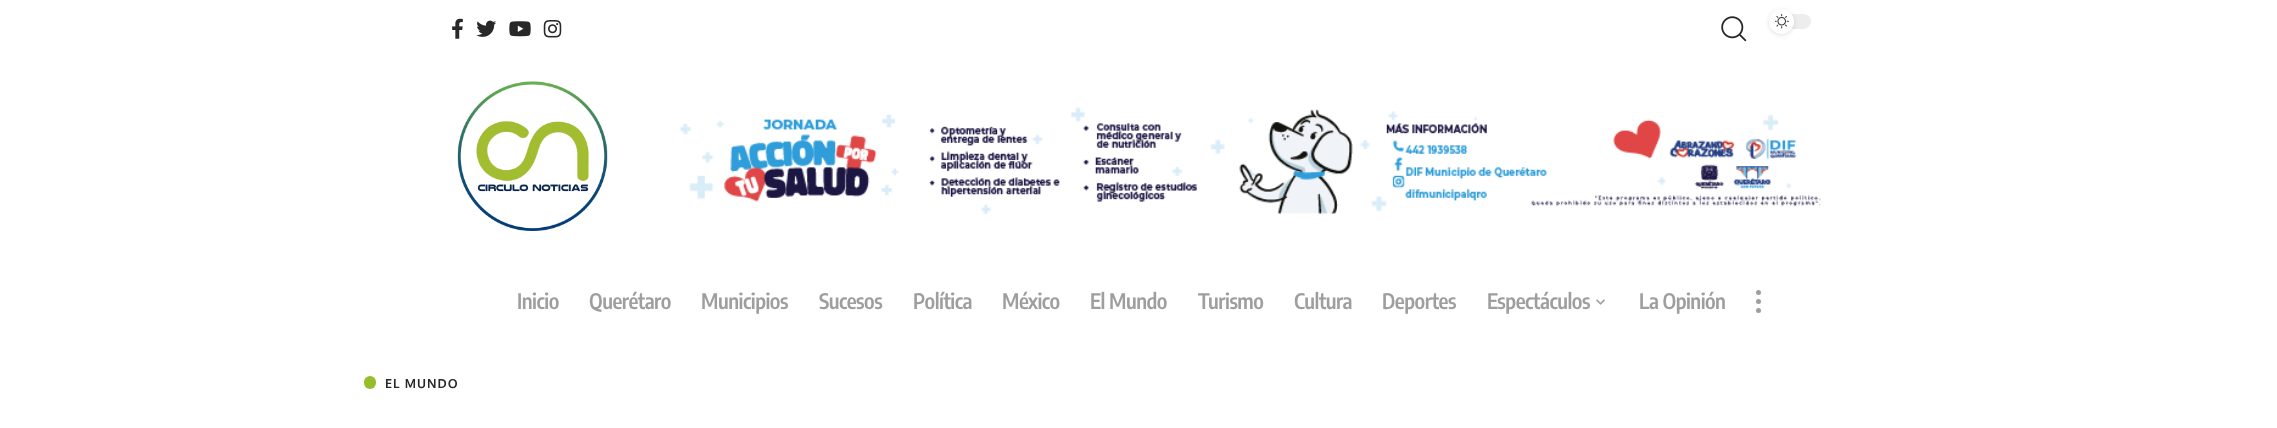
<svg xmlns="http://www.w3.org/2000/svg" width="2277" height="428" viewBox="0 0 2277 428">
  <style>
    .t1 { font: 600 21.25px Encode Sans Condensed; letter-spacing: -0.5px; fill: #9e9e9e; }
    .t2 { font: bold 12.5px Oxygen; letter-spacing: 1px; fill: #282828; }
  </style>
  <rect width="100%" height="100%" fill="#fff"/>
  <image x="452" y="18" width="11" height="21" href="images/1.png"/>
  <image x="476" y="20" width="21" height="17" href="images/2.png"/>
  <image x="509" y="21" width="22" height="16" href="images/3.png"/>
  <image x="543" y="20" width="19" height="18" href="images/4.png"/>
  <image x="1721" y="16" width="26" height="26" href="images/5.png"/>
  <rect x="1769" y="14" width="42" height="15" rx="7.5" fill="#ededed"/>
  <rect x="1769" y="10" width="25" height="25" rx="12.5" fill="#0000001f" filter="blur(2px)"/>
  <circle cx="1781.5" cy="21.5" r="12.5" fill="#fff"/>
  <image x="1775" y="14" width="14" height="15" href="images/6.png"/>
  <image x="457" y="81" width="151" height="150" href="images/7.png"/>
  <image x="680" y="107" width="1141" height="107" href="images/8.png"/>
  <text x="517" y="309" class="t1">Inicio</text>
  <text x="589" y="309" class="t1">Querétaro</text>
  <text x="701" y="309" class="t1">Municipios</text>
  <text x="819" y="309" class="t1">Sucesos</text>
  <text x="913" y="309" class="t1">Política</text>
  <text x="1002" y="309" class="t1">México</text>
  <text x="1090" y="309" class="t1">El Mundo</text>
  <text x="1198" y="309" class="t1">Turismo</text>
  <text x="1294" y="309" class="t1">Cultura</text>
  <text x="1382" y="309" class="t1">Deportes</text>
  <text x="1487" y="309" class="t1">Espectáculos</text>
  <image x="1596" y="299" width="9" height="6" href="images/9.png"/>
  <text x="1639" y="309" class="t1">La Opinión</text>
  <circle cx="1758.5" cy="292.5" r="2.5" fill="#9e9e9e"/>
  <circle cx="1758.5" cy="301.5" r="2.5" fill="#9e9e9e"/>
  <circle cx="1758.5" cy="310.5" r="2.5" fill="#9e9e9e"/>
  <rect x="364" y="376" width="12" height="13" rx="6" fill="#96be2a"/>
  <text x="385" y="388" class="t2">EL MUNDO</text>
</svg>
